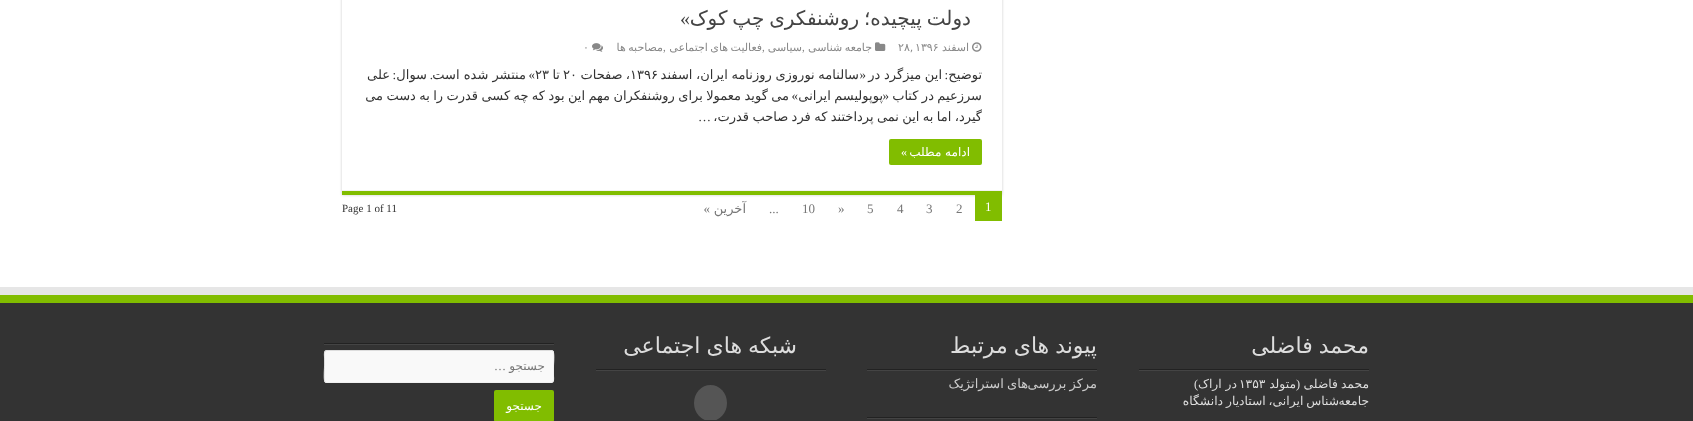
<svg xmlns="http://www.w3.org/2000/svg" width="1693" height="421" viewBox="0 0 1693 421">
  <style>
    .t1 { font: 20px DejaVu Sans; direction: rtl; fill: #444; }
    .t2 { font: 20px Liberation Serif; direction: rtl; fill: #444; }
    .t3 { font: 11px DejaVu Sans; direction: rtl; fill: #888; }
    .t4 { font: 11px DejaVu Sans; fill: #888; }
    .t5 { font: 11px Liberation Serif; fill: #888; }
    .t6 { font: 13px DejaVu Sans; direction: rtl; fill: #333; }
    .t7 { font: 13px Liberation Serif; direction: rtl; fill: #333; }
    .t8 { font: 13px DejaVu Sans; fill: #333; }
    .t9 { font: 12px DejaVu Sans; direction: rtl; fill: #fff; }
    .t10 { font: 12px Liberation Serif; direction: rtl; fill: #fff; }
    .t11 { font: 13px Liberation Serif; fill: #fff; }
    .t12 { font: 13px Liberation Serif; fill: #777; }
    .t13 { font: 13px DejaVu Sans; direction: rtl; fill: #777; }
    .t14 { font: 13px Liberation Serif; direction: rtl; fill: #777; }
    .t15 { font: 11px Liberation Serif; fill: #333; }
    .t16 { font: 22px DejaVu Sans; direction: rtl; fill: #ddd; }
    .t17 { font: 12.3px DejaVu Sans; direction: rtl; fill: #ddd; }
    .t18 { font: 12.3px Liberation Serif; direction: rtl; fill: #ddd; }
    .t19 { font: 12.3px DejaVu Sans; fill: #ddd; }
    .t20 { font: 13px DejaVu Sans; direction: rtl; fill: #ccc; }
    .t21 { font: 12px DejaVu Sans; direction: rtl; fill: #777; }
    .t22 { font: 12px Liberation Serif; direction: rtl; fill: #777; }
  </style>
  <defs>
    <clipPath id="clip1"><path d="M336 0H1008V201H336ZM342-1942H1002V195H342Z" clip-rule="evenodd"/></clipPath>
    <clipPath id="clip2"><rect x="692" y="380" width="37" height="40"/></clipPath>
  </defs>
  <rect width="100%" height="100%" fill="#fff"/>
  <g clip-path="url(#clip1)">
    <rect x="342" y="-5" width="660" height="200" fill="#cacaca" filter="blur(1.5px)"/>
  </g>
  <rect x="342" y="191" width="660" height="4" fill="#81bd00"/>
  <rect x="342" y="190" width="660" height="1" fill="#f2f2f2"/>
  <text x="971" y="25" word-spacing="-1.5" class="t1">دولت پیچیده؛ روشنفکری چپ کوک</text>
  <text x="690" y="25" class="t2">»</text>
  <image x="972" y="42" width="10" height="10" href="images/1.png"/>
  <text x="969" y="51" class="t3">اسفند</text>
  <text x="915" y="51" class="t4">۱۳۹۶</text>
  <text x="898" y="51" class="t4">۲۸,</text>
  <image x="875" y="42" width="11" height="9" href="images/2.png"/>
  <text x="872" y="51" word-spacing="-1" class="t3">جامعه شناسی</text>
  <text x="802" y="51" class="t5">,</text>
  <text x="802" y="51" class="t3">سیاسی</text>
  <text x="762" y="51" class="t5">,</text>
  <text x="762" y="51" word-spacing="-1" class="t3">فعالیت های اجتماعی</text>
  <text x="663" y="51" class="t5">,</text>
  <text x="663" y="51" word-spacing="-1" class="t3">مصاحبه ها</text>
  <image x="592" y="43" width="11" height="9" href="images/3.png"/>
  <text x="583" y="51" class="t4">۰</text>
  <text x="982" y="79" class="t6">توضیح</text>
  <text x="948" y="79" class="t7">:</text>
  <text x="942" y="79" word-spacing="-0.5" class="t6">این میزگرد در</text>
  <text x="859" y="79" word-spacing="-0.5" class="t6">سالنامه نوروزی روزنامه ایران، اسفند</text>
  <text x="866" y="79" class="t7">«</text>
  <text x="630" y="79" class="t8">۱۳۹۶</text>
  <text x="630" y="79" word-spacing="-1" class="t6">، صفحات</text>
  <text x="563" y="79" class="t8">۲۰</text>
  <text x="560" y="79" class="t6">تا</text>
  <text x="535" y="79" class="t8">۲۳</text>
  <text x="535" y="79" class="t7">»</text>
  <text x="526" y="79" class="t6">منتشر شده است</text>
  <text x="433" y="79" class="t7">.</text>
  <text x="427" y="79" class="t6">سوال</text>
  <text x="396" y="79" class="t7">:</text>
  <text x="390" y="79" class="t6">علی</text>
  <text x="982" y="100" word-spacing="-0.75" class="t6">سرزعیم در کتاب</text>
  <text x="883" y="100" word-spacing="-0.75" class="t6">پوپولیسم ایرانی</text>
  <text x="789" y="100" word-spacing="-0.75" class="t6">می گوید معمولا برای روشنفکران مهم این بود که چه کسی قدرت را به دست می</text>
  <text x="889" y="100" class="t7">«</text>
  <text x="798" y="100" class="t7">»</text>
  <text x="982" y="121" word-spacing="-0.75" class="t6">گیرد، اما به این نمی پرداختند که فرد صاحب قدرت،</text>
  <text x="711" y="121" class="t7">…</text>
  <rect x="889" y="139" width="93" height="26" rx="2" fill="#81bd00"/>
  <text x="970" y="156" class="t9">ادامه مطلب</text>
  <text x="907" y="156" class="t10">»</text>
  <rect x="975" y="195" width="27" height="26" fill="#81bd00"/>
  <text x="985" y="211" class="t11">1</text>
  <text x="956" y="213" class="t12">2</text>
  <text x="926" y="213" class="t12">3</text>
  <text x="897" y="213" class="t12">4</text>
  <text x="867" y="213" class="t12">5</text>
  <text x="838" y="213" class="t12">»</text>
  <text x="802" y="213" class="t12">10</text>
  <text x="769" y="213" class="t12">...</text>
  <text x="746" y="213" class="t13">آخرین</text>
  <text x="710" y="213" class="t14">»</text>
  <text x="342" y="212" class="t15">Page 1 of 11</text>
  <rect x="0" y="287" width="1693" height="8" fill="#e6e6e6"/>
  <rect x="0" y="303" width="1693" height="118" fill="#333"/>
  <rect x="0" y="295" width="1693" height="8" fill="#81bd00"/>
  <rect x="1139" y="369" width="230" height="1" fill="#222"/>
  <text x="1369" y="353" word-spacing="-1" class="t16">محمد فاضلی</text>
  <rect x="1139" y="370" width="230" height="1" fill="#444"/>
  <text x="1369" y="388" word-spacing="-1" class="t17">محمد فاضلی</text>
  <text x="1300" y="388" class="t18">(</text>
  <text x="1296" y="388" class="t17">متولد</text>
  <text x="1239" y="388" class="t19">۱۳۵۳</text>
  <text x="1237" y="388" class="t17">در اراک</text>
  <text x="1198" y="388" class="t18">)</text>
  <text x="1339" y="405" word-spacing="-1" class="t17">شناس ایرانی، استادیار دانشگاه</text>
  <text x="1369" y="405" class="t17">جامعه</text>
  <rect x="867" y="369" width="230" height="1" fill="#222"/>
  <text x="1097" y="353" word-spacing="-1" class="t16">پیوند های مرتبط</text>
  <rect x="867" y="370" width="230" height="1" fill="#444"/>
  <text x="1097" y="388" word-spacing="-1" class="t20">مرکز بررسی</text>
  <text x="1028" y="388" word-spacing="-1" class="t20">های استراتژیک</text>
  <rect x="867" y="417" width="230" height="1" fill="#222"/>
  <rect x="867" y="418" width="230" height="1" fill="#444"/>
  <rect x="596" y="369" width="230" height="1" fill="#222"/>
  <text x="797" y="353" word-spacing="-1" class="t16">شبکه های اجتماعی</text>
  <rect x="596" y="370" width="230" height="1" fill="#444"/>
  <g clip-path="url(#clip2)">
    <ellipse cx="710.5" cy="403" rx="16.5" ry="18" fill="#555"/>
  </g>
  <rect x="324" y="343" width="230" height="1" fill="#222"/>
  <rect x="324" y="344" width="230" height="1" fill="#444"/>
  <rect x="324" y="350" width="230" height="33" rx="3" fill="#f9f9f9"/>
  <path d="M553 351C554.5 353 553.5 364 553.5 366.5V375.5C553.5 377.5 554.5 382.5 551 382.5H326.5L325 382" fill="none" stroke="#f1f1f1"/>
  <path d="M325 382C323.5 380 324.5 369 324.5 366.5V357.5C324.5 355.5 323.5 350.5 327 350.5H551.5L553 351" fill="none" stroke="#ddd"/>
  <text x="545" y="370" class="t21">جستجو</text>
  <text x="506" y="370" class="t22">…</text>
  <rect x="494" y="390" width="60" height="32" rx="2" fill="#81bd00"/>
  <text x="542" y="410" class="t9">جستجو</text>
</svg>
